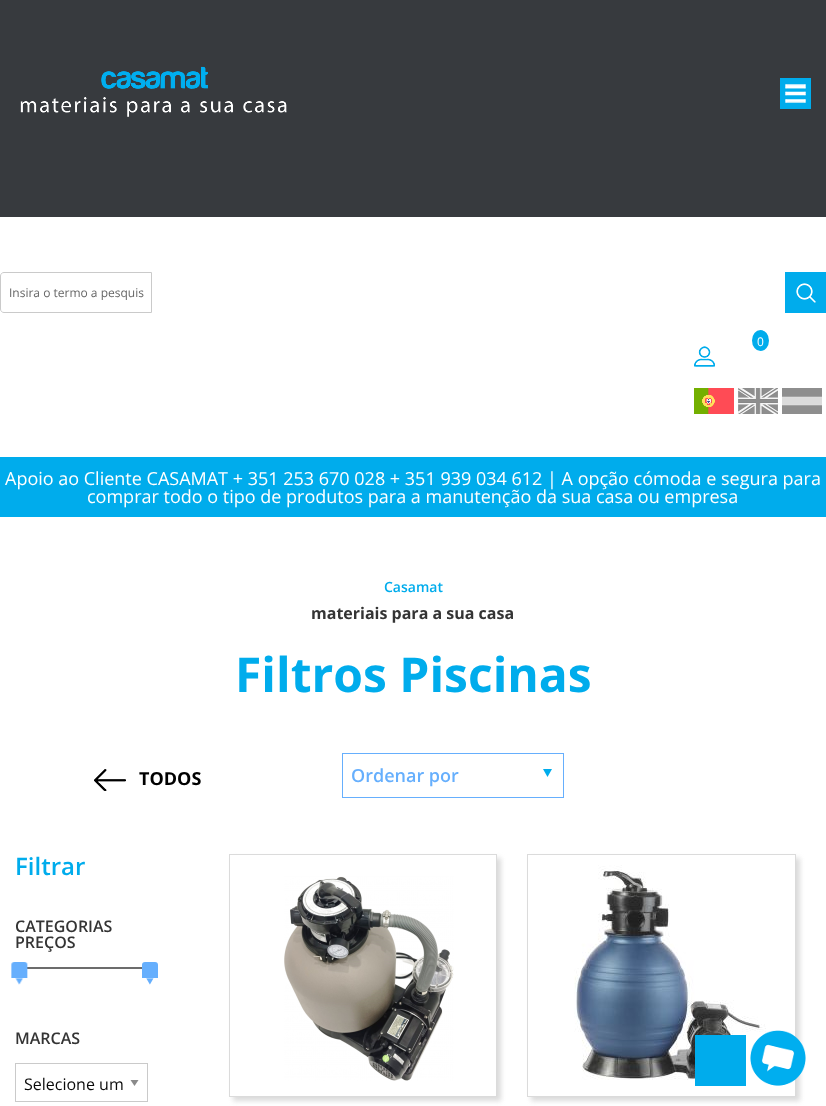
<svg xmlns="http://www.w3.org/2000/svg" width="826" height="1106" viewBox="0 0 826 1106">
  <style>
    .t1 { font: 12px Open Sans; fill: #666; }
    .t2 { font: 12px Open Sans; fill: #fff; }
    .t3 { font: 18px Open Sans; fill: #fff; }
    .t4 { font: 600 14px Open Sans; fill: #00acec; }
    .t5 { font: bold 16px Open Sans; fill: #343434; }
    .t6 { font: bold 48px Open Sans; fill: #00acec; }
    .t7 { font: bold 18px Open Sans; fill: #000; }
    .t8 { font: 600 18px Open Sans; fill: #66affd; }
    .t9 { font: 600 24px Open Sans; fill: #00acec; }
    .t10 { font: 600 16px Open Sans; fill: #343434; }
    .t11 { font: 16px Open Sans; fill: #0a0a0a; }
  </style>
  <defs>
    <clipPath id="clip1"><path d="M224 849H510V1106H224ZM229 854H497V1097H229Z" clip-rule="evenodd"/></clipPath>
    <clipPath id="clip2"><path d="M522 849H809V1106H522ZM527 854H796V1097H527Z" clip-rule="evenodd"/></clipPath>
  </defs>
  <rect width="100%" height="100%" fill="#fff"/>
  <rect x="0" y="0" width="826" height="217" fill="#373a3e"/>
  <image x="20" y="66" width="267" height="51" href="images/1.png"/>
  <rect x="780" y="78" width="31" height="31" fill="#00acec"/>
  <image x="785" y="84" width="21" height="19" href="images/2.png"/>
  <path d="M4 272.5H151.5V312.5H4C2 312.5 .5 311 .5 309V276C.5 274 2 272.5 4 272.5Z" fill="none" stroke="#cacaca"/>
  <text x="9" y="297" class="t1">Insira o termo a pesquis</text>
  <rect x="785" y="272" width="41" height="41" fill="#00acec"/>
  <image x="796" y="283" width="20" height="20" href="images/3.png"/>
  <ellipse cx="760.5" cy="340.5" rx="8.5" ry="10.5" fill="#00acec"/>
  <text x="757" y="346" class="t2">0</text>
  <image x="694" y="346" width="21" height="21" href="images/4.png"/>
  <image x="694" y="388" width="40" height="26" href="images/5.png"/>
  <image x="738" y="388" width="40" height="26" href="images/6.png"/>
  <image x="782" y="388" width="40" height="26" href="images/7.png"/>
  <rect x="0" y="457" width="826" height="60" fill="#00acec"/>
  <text x="5" y="485" class="t3">Apoio ao Cliente CASAMAT + 351 253 670 028 + 351 939 034 612 | A opção cómoda e segura para</text>
  <text x="87" y="503" class="t3">comprar todo o tipo de produtos para a manutenção da sua casa ou empresa</text>
  <text x="384" y="592" class="t4">Casamat</text>
  <text x="311" y="619" class="t5">materiais para a sua casa</text>
  <text x="235" y="692" class="t6">Filtros Piscinas</text>
  <image x="94" y="769" width="32" height="22" href="images/8.png"/>
  <text x="139" y="785" class="t7">TODOS</text>
  <image x="543" y="769" width="9" height="8" href="images/9.png"/>
  <rect x="342.5" y="753.5" width="221" height="44" fill="none" stroke="#66affd"/>
  <text x="351" y="782" class="t8">Ordenar por</text>
  <text x="15" y="875" class="t9">Filtrar</text>
  <text x="15" y="932" class="t10">CATEGORIAS</text>
  <text x="15" y="948" class="t10">PREÇOS</text>
  <rect x="27" y="967" width="121" height="2" fill="#6c6c6c"/>
  <image x="11" y="962" width="17" height="23" href="images/10.png"/>
  <image x="142" y="962" width="16" height="23" href="images/11.png"/>
  <text x="15" y="1044" class="t10">MARCAS</text>
  <path d="M130.5 1080H138.5L134.5 1086Z" fill="#8a8a8a"/>
  <rect x="15.5" y="1063.5" width="132" height="38" fill="none" stroke="#cacaca"/>
  <text x="24" y="1090" class="t11">Selecione um</text>
  <g clip-path="url(#clip1)">
    <rect x="233" y="858" width="268" height="243" fill="#dbdbdb" filter="blur(2.5px)"/>
  </g>
  <rect x="229.5" y="854.5" width="267" height="242" fill="none" stroke="#dbdbdb"/>
  <image x="284" y="876" width="170" height="205" href="images/12.png"/>
  <g clip-path="url(#clip2)">
    <rect x="531" y="858" width="269" height="243" fill="#dbdbdb" filter="blur(2.5px)"/>
  </g>
  <rect x="527.5" y="854.5" width="268" height="242" fill="none" stroke="#dbdbdb"/>
  <image x="574" y="865" width="192" height="215" href="images/13.png"/>
  <rect x="695" y="1035" width="51" height="51" fill="#00acec"/>
  <image x="750" y="1030" width="56" height="56" href="images/14.png"/>
</svg>
